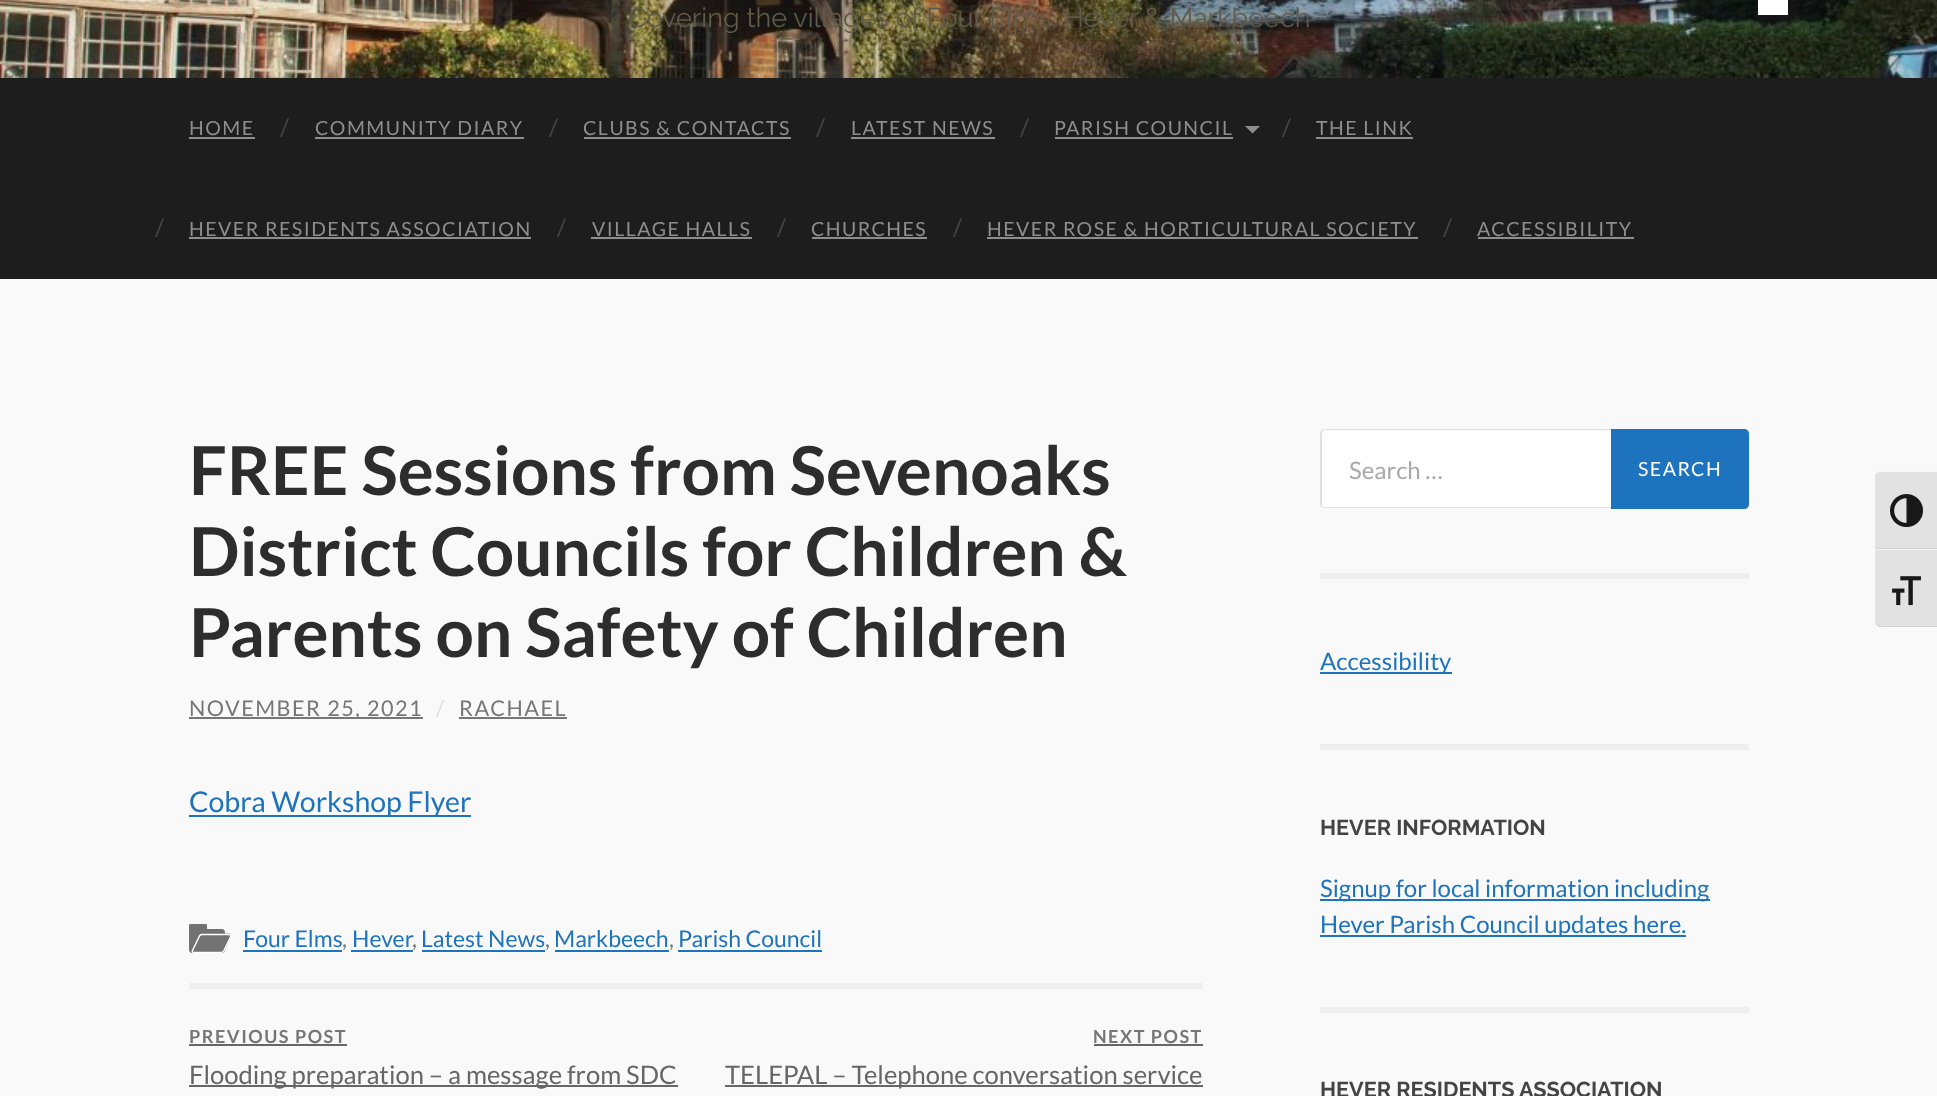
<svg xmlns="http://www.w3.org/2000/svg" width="1937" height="1096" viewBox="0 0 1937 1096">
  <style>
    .t1 { font: 27px Raleway; fill: #605a4a; }
    .t2 { font: 19.5px Lato; letter-spacing: 1.5px; fill: #8e8e8e; }
    .t3 { font: 24px Lato; fill: #444; }
    .t4 { font: bold 67.5px Lato; fill: #2d2d2d; }
    .t5 { font: 21.6px Lato; letter-spacing: 1.5px; fill: #767676; }
    .t6 { font: 21.6px Lato; letter-spacing: 1.5px; fill: #ddd; }
    .t7 { font: 28.5px Lato; fill: #1e73be; }
    .t8 { font: 23px Lato; fill: #1e73be; }
    .t9 { font: 23px Lato; fill: #767676; }
    .t10 { font: bold 18px Lato; letter-spacing: 1.5px; fill: #767676; }
    .t11 { font: 25.6px Lato; fill: #666; }
    .t12 { font: 24px Lato; fill: #a9a9a9; }
    .t13 { font: 19.5px Lato; letter-spacing: 1.5px; fill: #fff; }
    .t14 { font: 24px Lato; fill: #1e73be; }
    .t15 { font: bold 21.6px Raleway; fill: #444; }
  </style>
  <rect width="100%" height="100%" fill="#f9f9f9"/>
  <image x="0" y="0" width="1937" height="78" href="images/1.png"/>
  <rect x="584" y="0" width="771" height="78" fill="#1d1d1d26"/>
  <text x="628" y="27" class="t1">Covering the villages of Four Elms, Hever &amp; Markbeech</text>
  <rect x="0" y="78" width="1937" height="201" fill="#1d1d1d"/>
  <text x="189" y="135" class="t2">HOME</text>
  <rect x="189" y="137" width="66" height="2" fill="#8e8e8e"/>
  <text x="280" y="136" class="t3">/</text>
  <text x="315" y="135" class="t2">COMMUNITY DIARY</text>
  <rect x="315" y="137" width="209" height="2" fill="#8e8e8e"/>
  <text x="549" y="136" class="t3">/</text>
  <text x="583" y="135" class="t2">CLUBS &amp; CONTACTS</text>
  <rect x="584" y="137" width="207" height="2" fill="#8e8e8e"/>
  <text x="816" y="136" class="t3">/</text>
  <text x="851" y="135" class="t2">LATEST NEWS</text>
  <rect x="851" y="137" width="144" height="2" fill="#8e8e8e"/>
  <text x="1020" y="136" class="t3">/</text>
  <text x="1054" y="135" class="t2">PARISH COUNCIL</text>
  <rect x="1055" y="137" width="178" height="2" fill="#8e8e8e"/>
  <path d="M1245 126H1260L1252.5 133.5Z" fill="#8e8e8e"/>
  <text x="1282" y="136" class="t3">/</text>
  <text x="1316" y="135" class="t2">THE LINK</text>
  <rect x="1316" y="137" width="97" height="2" fill="#8e8e8e"/>
  <text x="155" y="236" class="t3">/</text>
  <text x="189" y="236" class="t2">HEVER RESIDENTS ASSOCIATION</text>
  <rect x="189" y="237" width="342" height="2" fill="#8e8e8e"/>
  <text x="557" y="236" class="t3">/</text>
  <text x="592" y="236" class="t2">VILLAGE HALLS</text>
  <rect x="591" y="237" width="161" height="2" fill="#8e8e8e"/>
  <text x="777" y="236" class="t3">/</text>
  <text x="811" y="236" class="t2">CHURCHES</text>
  <rect x="812" y="237" width="115" height="2" fill="#8e8e8e"/>
  <text x="953" y="236" class="t3">/</text>
  <text x="987" y="236" class="t2">HEVER ROSE &amp; HORTICULTURAL SOCIETY</text>
  <rect x="987" y="237" width="431" height="2" fill="#8e8e8e"/>
  <text x="1443" y="236" class="t3">/</text>
  <text x="1477" y="236" class="t2">ACCESSIBILITY</text>
  <rect x="1478" y="237" width="156" height="2" fill="#8e8e8e"/>
  <text x="189" y="495" class="t4">FREE Sessions from Sevenoaks</text>
  <text x="189" y="576" class="t4">District Councils for Children &amp;</text>
  <text x="189" y="657" class="t4">Parents on Safety of Children</text>
  <rect x="189" y="717" width="234" height="2" fill="#767676"/>
  <text x="189" y="716" class="t5">NOVEMBER 25, 2021</text>
  <text x="436" y="716" class="t6">/</text>
  <text x="459" y="716" class="t5">RACHAEL</text>
  <rect x="459" y="717" width="108" height="2" fill="#767676"/>
  <rect x="189" y="815" width="282" height="2" fill="#1e73be"/>
  <text x="189" y="812" class="t7">Cobra Workshop Flyer</text>
  <path d="M189 929H222C223.5 929 225 930.5 225 932V950C225 951.5 223.5 953 222 953H192C190.5 953 189 951.5 189 950Z" fill="#727272"/>
  <path d="M190.5 924H205.5C206.5 924 207 924.5 207 925.5V929H189V925.5C189 924.5 189.5 924 190.5 924Z" fill="#727272"/>
  <path d="M203 934H221C227 934 234 931 230 939L226 948C223 954 222 953 216 953H193C189 953 194 945 195 944C196 941 198 934 203 934Z" fill="#727272"/>
  <path d="M202 934.5H229C230.5 934.5 231 935.5 230.5 937L224 950.5C223.5 951.5 222 952.5 221 952.5H194C192.5 952.5 192 951.5 192.5 950.5L199 937C199.5 935.5 201 934.5 202 934.5Z" fill="none" stroke="#fff" stroke-width="1.5"/>
  <text x="243" y="947" class="t8">Four Elms</text>
  <rect x="243" y="950" width="99" height="2" fill="#1e73be"/>
  <text x="342" y="947" class="t9">,</text>
  <text x="352" y="947" class="t8">Hever</text>
  <rect x="351" y="950" width="62" height="2" fill="#1e73be"/>
  <text x="412" y="947" class="t9">,</text>
  <text x="421" y="947" class="t8">Latest News</text>
  <rect x="422" y="950" width="123" height="2" fill="#1e73be"/>
  <text x="545" y="947" class="t9">,</text>
  <text x="554" y="947" class="t8">Markbeech</text>
  <rect x="555" y="950" width="114" height="2" fill="#1e73be"/>
  <text x="669" y="947" class="t9">,</text>
  <text x="678" y="947" class="t8">Parish Council</text>
  <rect x="678" y="950" width="144" height="2" fill="#1e73be"/>
  <rect x="189" y="983" width="1014" height="6" fill="#eee"/>
  <text x="189" y="1043" class="t10">PREVIOUS POST</text>
  <rect x="189" y="1044" width="158" height="2" fill="#666"/>
  <rect x="189" y="1085" width="489" height="2" fill="#666"/>
  <text x="189" y="1084" class="t11">Flooding preparation – a message from SDC</text>
  <text x="1093" y="1043" class="t10">NEXT POST</text>
  <rect x="1094" y="1044" width="109" height="2" fill="#666"/>
  <rect x="725" y="1085" width="478" height="2" fill="#666"/>
  <text x="725" y="1084" class="t11">TELEPAL – Telephone conversation service</text>
  <rect x="1320" y="573" width="429" height="6" fill="#eee"/>
  <path d="M1325 431H1611V507H1325C1323.5 507 1322 505.5 1322 504V434C1322 432.5 1323.5 431 1325 431Z" fill="#fff"/>
  <path d="M1324 429H1611V508H1324C1322 508 1320 506 1320 504V434C1320 431 1322 429 1324 429ZM1324 430H1611V507H1324C1323 507 1322 506 1322 504V434C1322 432 1323 430 1324 430Z" fill="#e1e1e3" fill-rule="evenodd"/>
  <text x="1349" y="479" class="t12">Search …</text>
  <path d="M1611 429H1744C1747 429 1749 431 1749 434V504C1749 507 1747 509 1744 509H1611Z" fill="#1e73be"/>
  <text x="1638" y="476" class="t13">SEARCH</text>
  <rect x="1320" y="744" width="429" height="6" fill="#eee"/>
  <rect x="1320" y="672" width="132" height="2" fill="#1e73be"/>
  <text x="1320" y="670" class="t14">Accessibility</text>
  <rect x="1320" y="1007" width="429" height="6" fill="#eee"/>
  <text x="1320" y="835" class="t15">HEVER INFORMATION</text>
  <rect x="1320" y="899" width="390" height="2" fill="#1e73be"/>
  <text x="1320" y="897" class="t14">Signup for local information including</text>
  <rect x="1320" y="935" width="366" height="2" fill="#1e73be"/>
  <text x="1320" y="933" class="t14">Hever Parish Council updates here.</text>
  <text x="1320" y="1097" class="t15">HEVER RESIDENTS ASSOCIATION</text>
  <rect x="1758" y="0" width="36" height="21" fill="#161616" filter="blur(4px)"/>
  <rect x="1758" y="0" width="30" height="15" fill="#fff"/>
  <path d="M1881 471H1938V549H1875V477C1875 473.5 1877.5 471 1881 471Z" fill="#e2e2e2"/>
  <path d="M1881 472H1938V471H1881C1878 471 1875 474 1875 477C1875 475 1878 472 1881 472Z" fill="#f5f5f5"/>
  <rect x="1875" y="548" width="62" height="1" fill="#d2d2d2"/>
  <image x="1890" y="494" width="33" height="34" href="images/2.png"/>
  <path d="M1875 549H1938V627H1881C1877.5 627 1875 624.5 1875 621Z" fill="#e2e2e2"/>
  <rect x="1875" y="549" width="62" height="1" fill="#f5f5f5"/>
  <path d="M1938 627V626H1881C1878 626 1875 623 1875 621C1875 624 1878 627 1881 627Z" fill="#d2d2d2"/>
  <image x="1892" y="576" width="29" height="30" href="images/3.png"/>
</svg>
